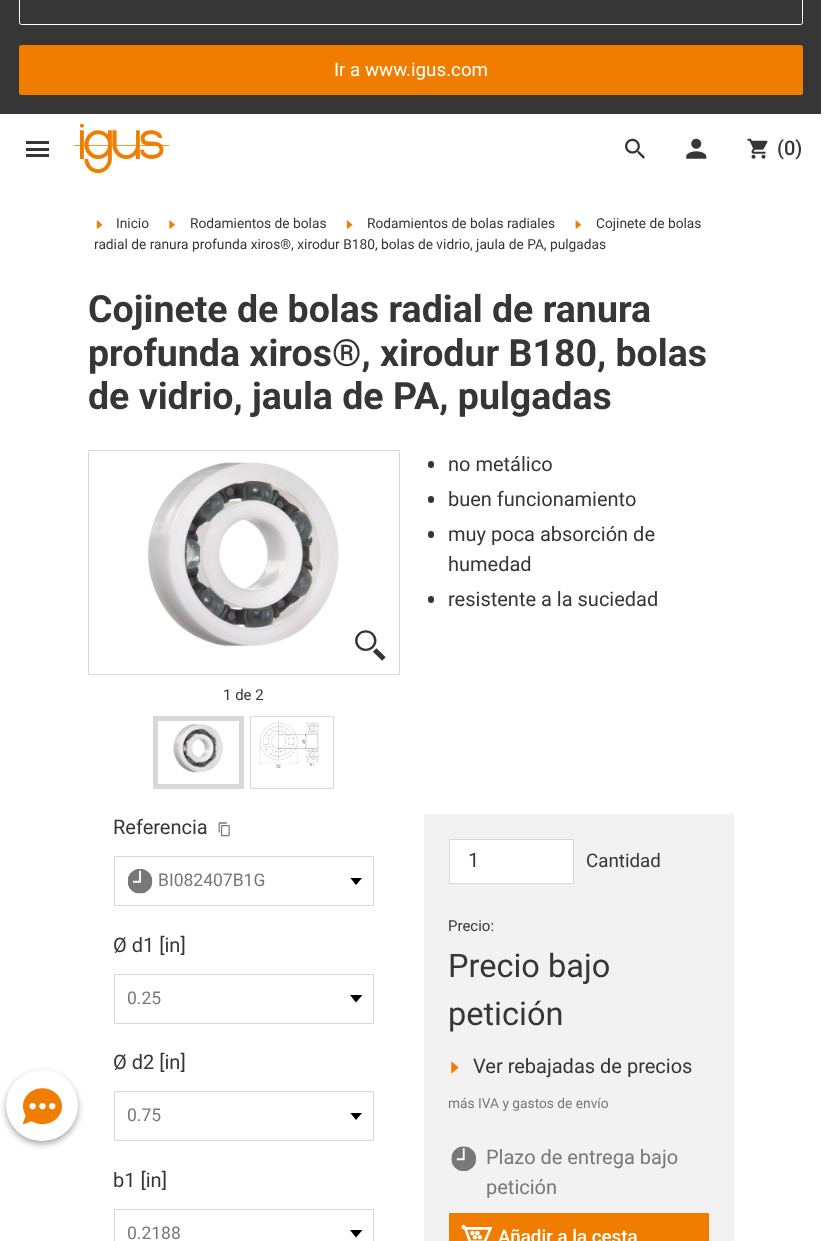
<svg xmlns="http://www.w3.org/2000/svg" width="840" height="1241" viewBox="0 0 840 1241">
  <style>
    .t1 { font: 18.75px Roboto; fill: #fff; }
    .t2 { font: 500 20px Roboto; fill: #363636; }
    .t3 { font: 13.75px Roboto; fill: #363636; }
    .t4 { font: bold 37.5px Roboto; fill: #363636; }
    .t5 { font: 20px Roboto; fill: #363636; }
    .t6 { font: 15px Roboto; fill: #363636; }
    .t7 { font: 17.5px Roboto; fill: #787878; }
    .t8 { font: 18.75px Roboto; fill: #363636; }
    .t9 { font: 32.5px Roboto; fill: #363636; }
    .t10 { font: 13.75px Roboto; fill: #787878; }
    .t11 { font: 20px Roboto; fill: #787878; }
    .t12 { font: 500 18.75px Roboto; fill: #fff; }
  </style>
  <defs>
    <clipPath id="clip1"><rect x="350" y="878" width="13" height="7"/></clipPath>
    <clipPath id="clip2"><rect x="128" y="985" width="200" height="26"/></clipPath>
    <clipPath id="clip3"><rect x="128" y="1103" width="200" height="26"/></clipPath>
    <clipPath id="clip4"><rect x="350" y="1113" width="13" height="7"/></clipPath>
    <clipPath id="clip5"><rect x="128" y="1220" width="200" height="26"/></clipPath>
  </defs>
  <rect width="100%" height="100%" fill="#fff"/>
  <rect x="6" y="1073" width="72" height="71" rx="35.5" fill="#00000059" filter="blur(3px)"/>
  <rect x="6" y="1070" width="72" height="71" rx="35.5" fill="#fff"/>
  <image x="22" y="1088" width="40" height="37" href="images/1.png"/>
  <rect x="0" y="0" width="821" height="114" fill="#363636"/>
  <rect x="19.5" y="-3.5" width="783" height="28" rx="2" fill="none" stroke="#fff"/>
  <rect x="19" y="45" width="784" height="50" rx="2.5" fill="#f07d00"/>
  <text x="334" y="76" class="t1">Ir a www.igus.com</text>
  <rect x="26" y="148" width="23" height="3" fill="#363636"/>
  <rect x="26" y="141" width="23" height="3" fill="#363636"/>
  <rect x="26" y="154" width="23" height="3" fill="#363636"/>
  <image x="74" y="124" width="96" height="50" href="images/2.png"/>
  <image x="625" y="138" width="20" height="21" href="images/3.png"/>
  <image x="686" y="138" width="21" height="21" href="images/4.png"/>
  <image x="747" y="138" width="21" height="21" href="images/5.png"/>
  <text x="777" y="155" class="t2">(0)</text>
  <image x="575" y="220" width="7" height="9" href="images/6.png"/>
  <text x="596" y="228" class="t3">Cojinete de bolas</text>
  <text x="94" y="249" class="t3">radial de ranura profunda xiros®, xirodur B180, bolas de vidrio, jaula de PA, pulgadas</text>
  <image x="96" y="220" width="7" height="9" href="images/7.png"/>
  <text x="116" y="228" class="t3">Inicio</text>
  <image x="169" y="220" width="6" height="9" href="images/8.png"/>
  <text x="190" y="228" class="t3">Rodamientos de bolas</text>
  <image x="346" y="220" width="7" height="9" href="images/7.png"/>
  <text x="367" y="228" class="t3">Rodamientos de bolas radiales</text>
  <text x="88" y="322" class="t4">Cojinete de bolas radial de ranura</text>
  <text x="88" y="366" class="t4">profunda xiros®, xirodur B180, bolas</text>
  <text x="88" y="409" class="t4">de vidrio, jaula de PA, pulgadas</text>
  <rect x="428" y="461" width="6" height="7" rx="3" fill="#363636"/>
  <text x="448" y="471" class="t5">no metálico</text>
  <rect x="428" y="496" width="6" height="7" rx="3" fill="#363636"/>
  <text x="448" y="506" class="t5">buen funcionamiento</text>
  <rect x="428" y="531" width="6" height="7" rx="3" fill="#363636"/>
  <text x="448" y="541" class="t5">muy poca absorción de</text>
  <text x="448" y="571" class="t5">humedad</text>
  <rect x="428" y="596" width="6" height="7" rx="3" fill="#363636"/>
  <text x="448" y="606" class="t5">resistente a la suciedad</text>
  <rect x="88.5" y="450.5" width="311" height="224" fill="none" stroke="#d8d8d8"/>
  <image x="147" y="462" width="192" height="185" href="images/9.png"/>
  <image x="355" y="630" width="31" height="31" href="images/10.png"/>
  <text x="223" y="700" class="t6">1 de 2</text>
  <rect x="155.5" y="718.5" width="86" height="68" fill="none" stroke="#d8d8d8" stroke-width="5"/>
  <image x="173" y="723" width="50" height="50" href="images/11.png"/>
  <rect x="250.5" y="716.5" width="83" height="72" fill="none" stroke="#d8d8d8"/>
  <image x="259" y="719" width="60" height="49" href="images/12.png"/>
  <text x="113" y="834" class="t5">Referencia</text>
  <image x="218" y="822" width="12" height="15" href="images/13.png"/>
  <rect x="114.5" y="856.5" width="259" height="49" fill="none" stroke="#d8d8d8"/>
  <image x="127" y="869" width="26" height="25" href="images/14.png"/>
  <text x="158" y="886" class="t7">BI082407B1G</text>
  <g clip-path="url(#clip1)">
    <path d="M362.5 877.5L356 885L350 877.5Z" fill="#000"/>
  </g>
  <text x="113" y="952" class="t5">Ø d1 [in]</text>
  <rect x="114.5" y="974.5" width="259" height="49" fill="none" stroke="#d8d8d8"/>
  <g clip-path="url(#clip2)">
    <text x="127" y="1004" class="t7">0.25</text>
  </g>
  <path d="M362.5 995L356 1002.5L350 995Z" fill="#000"/>
  <text x="113" y="1069" class="t5">Ø d2 [in]</text>
  <rect x="114.5" y="1091.5" width="259" height="49" fill="none" stroke="#d8d8d8"/>
  <g clip-path="url(#clip3)">
    <text x="127" y="1121" class="t7">0.75</text>
  </g>
  <g clip-path="url(#clip4)">
    <path d="M362.5 1112.5L356 1120L350 1112.5Z" fill="#000"/>
  </g>
  <text x="113" y="1187" class="t5">b1 [in]</text>
  <rect x="114.5" y="1209.5" width="259" height="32" fill="none" stroke="#d8d8d8"/>
  <g clip-path="url(#clip5)">
    <text x="127" y="1239" class="t7">0.2188</text>
  </g>
  <path d="M362.5 1230L356 1237.5L350 1230Z" fill="#000"/>
  <rect x="424" y="814" width="310" height="427" fill="#f2f2f2"/>
  <rect x="449.5" y="839.5" width="124" height="44" fill="#fff" stroke="#d8d8d8"/>
  <text x="468" y="867" class="t5">1</text>
  <text x="586" y="867" class="t8">Cantidad</text>
  <text x="448" y="931" class="t6">Precio:</text>
  <text x="448" y="977" class="t9">Precio bajo</text>
  <text x="448" y="1025" class="t9">petición</text>
  <image x="451" y="1061" width="8" height="13" href="images/15.png"/>
  <text x="473" y="1073" class="t5">Ver rebajadas de precios</text>
  <text x="448" y="1108" class="t10">más IVA y gastos de envío</text>
  <image x="451" y="1146" width="25" height="25" href="images/16.png"/>
  <text x="486" y="1164" class="t11">Plazo de entrega bajo</text>
  <text x="486" y="1194" class="t11">petición</text>
  <rect x="449" y="1213" width="260" height="28" fill="#f07d00"/>
  <image x="461" y="1224" width="32" height="17" href="images/17.png"/>
  <text x="498" y="1243" class="t12">Añadir a la cesta</text>
</svg>
